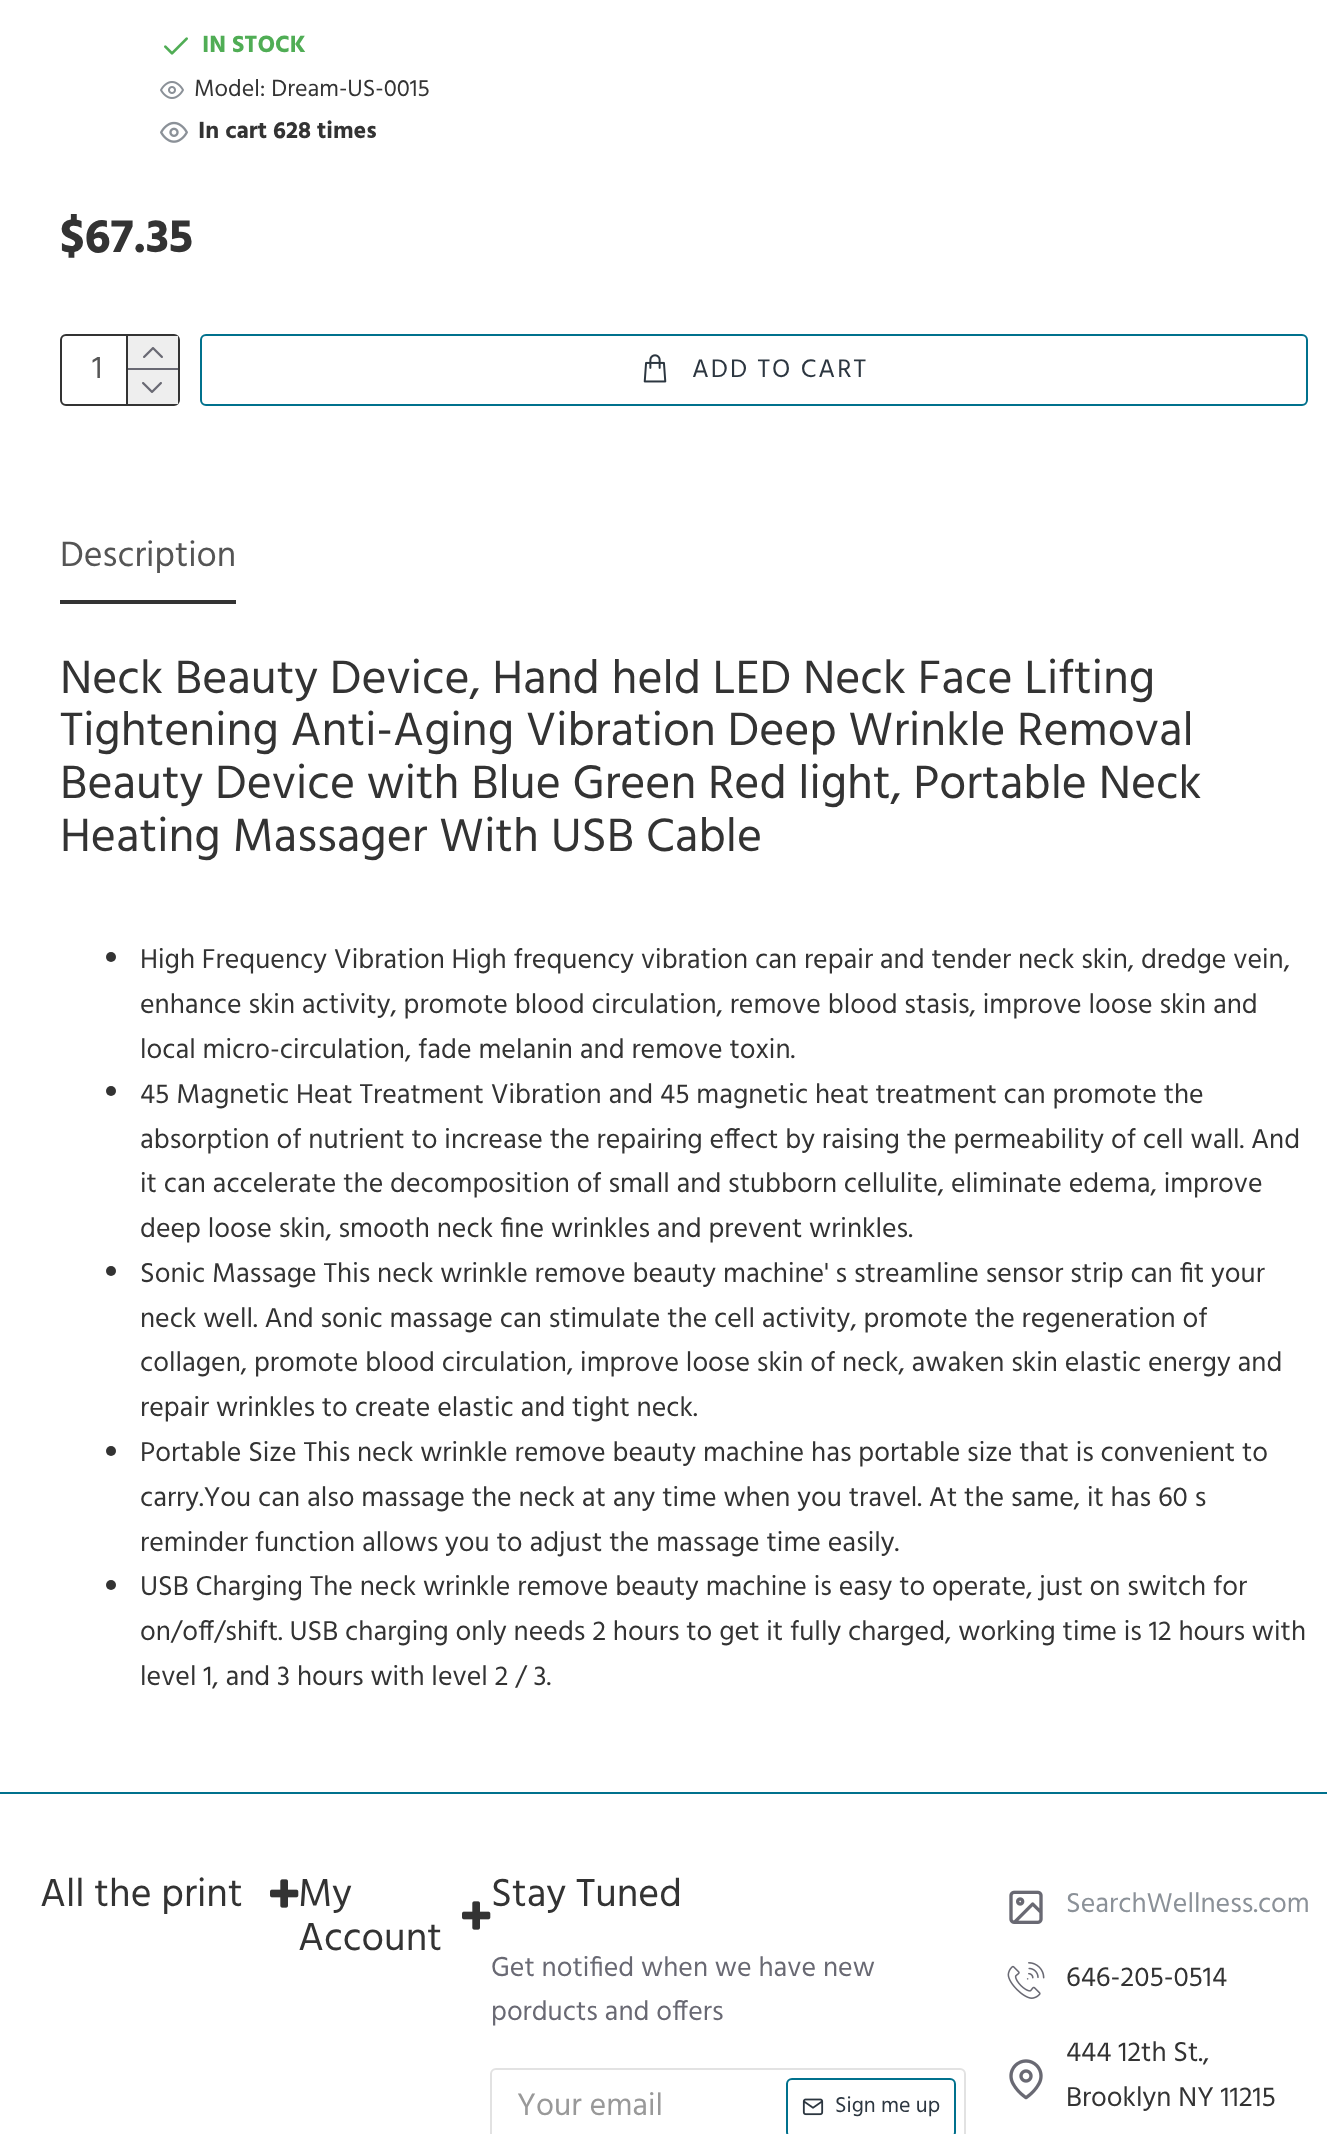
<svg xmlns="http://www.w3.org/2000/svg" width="1327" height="2134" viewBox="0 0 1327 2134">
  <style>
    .t1 { font: bold 24px Hind; fill: #50ad55; }
    .t2 { font: 24px Hind; fill: #333; }
    .t3 { font: bold 24px Hind; fill: #333; }
    .t4 { font: bold 48px Hind; fill: #333; }
    .t5 { font: 32px Hind; fill: #555; }
    .t6 { font: 26px Hind; letter-spacing: 2px; fill: #2c3640; }
    .t7 { font: 36px Hind; fill: #555; }
    .t8 { font: 48px Hind; fill: #333; }
    .t9 { font: 28px Hind; fill: #333; }
    .t10 { font: 40px Hind; fill: #333; }
    .t11 { font: 28px Hind; fill: #696973; }
    .t12 { font: 32px Hind; fill: #999; }
    .t13 { font: 22px Hind; fill: #2c3640; }
    .t14 { font: 28px Hind; fill: #8b9198; }
  </style>
  <rect width="100%" height="100%" fill="#fff"/>
  <image x="164" y="37" width="24" height="18" href="images/1.png"/>
  <text x="202" y="52" class="t1">IN STOCK</text>
  <image x="160" y="81" width="24" height="18" href="images/2.png"/>
  <text x="194" y="96" class="t2">Model: Dream-US-0015</text>
  <image x="160" y="121" width="28" height="22" href="images/3.png"/>
  <text x="198" y="138" class="t3">In cart 628 times</text>
  <text x="60" y="252" class="t4">$67.35</text>
  <rect x="61" y="335" width="118" height="70" rx="5" fill="none" stroke="#333" stroke-width="2"/>
  <rect x="62" y="336" width="116" height="68" rx="6" fill="#fff"/>
  <text x="92" y="378" class="t5">1</text>
  <rect x="126" y="336" width="2" height="68" fill="#333"/>
  <rect x="128" y="336" width="50" height="32" fill="#eee"/>
  <rect x="128" y="368" width="50" height="2" fill="#696973"/>
  <image x="143" y="347" width="20" height="11" href="images/4.png"/>
  <rect x="128" y="370" width="50" height="34" fill="#eee"/>
  <image x="142" y="382" width="20" height="11" href="images/5.png"/>
  <rect x="201" y="335" width="1106" height="70" rx="5" fill="none" stroke="#00718d" stroke-width="2"/>
  <image x="643" y="354" width="24" height="29" href="images/6.png"/>
  <text x="692" y="377" class="t6">ADD TO CART</text>
  <rect x="60" y="600" width="176" height="4" fill="#333"/>
  <text x="60" y="566" class="t7">Description</text>
  <text x="60" y="693" class="t8">Neck Beauty Device, Hand held LED Neck Face Lifting</text>
  <text x="60" y="745" class="t8">Tightening Anti-Aging Vibration Deep Wrinkle Removal</text>
  <text x="60" y="798" class="t8">Beauty Device with Blue Green Red light, Portable Neck</text>
  <text x="60" y="851" class="t8">Heating Massager With USB Cable</text>
  <circle cx="111" cy="957" r="5" fill="#333"/>
  <text x="140" y="968" class="t9">High Frequency Vibration High frequency vibration can repair and tender neck skin, dredge vein,</text>
  <text x="140" y="1013" class="t9">enhance skin activity, promote blood circulation, remove blood stasis, improve loose skin and</text>
  <text x="140" y="1058" class="t9">local micro-circulation, fade melanin and remove toxin.</text>
  <circle cx="111" cy="1091" r="5" fill="#333"/>
  <text x="140" y="1103" class="t9">45 Magnetic Heat Treatment Vibration and 45 magnetic heat treatment can promote the</text>
  <text x="140" y="1148" class="t9">absorption of nutrient to increase the repairing effect by raising the permeability of cell wall. And</text>
  <text x="140" y="1192" class="t9">it can accelerate the decomposition of small and stubborn cellulite, eliminate edema, improve</text>
  <text x="140" y="1237" class="t9">deep loose skin, smooth neck fine wrinkles and prevent wrinkles.</text>
  <circle cx="111" cy="1271" r="5" fill="#333"/>
  <text x="140" y="1282" class="t9">Sonic Massage This neck wrinkle remove beauty machine' s streamline sensor strip can fit your</text>
  <text x="140" y="1327" class="t9">neck well. And sonic massage can stimulate the cell activity, promote the regeneration of</text>
  <text x="140" y="1371" class="t9">collagen, promote blood circulation, improve loose skin of neck, awaken skin elastic energy and</text>
  <text x="140" y="1416" class="t9">repair wrinkles to create elastic and tight neck.</text>
  <circle cx="111" cy="1451" r="5" fill="#333"/>
  <text x="140" y="1461" class="t9">Portable Size This neck wrinkle remove beauty machine has portable size that is convenient to</text>
  <text x="140" y="1506" class="t9">carry.You can also massage the neck at any time when you travel. At the same, it has 60 s</text>
  <text x="140" y="1551" class="t9">reminder function allows you to adjust the massage time easily.</text>
  <circle cx="111" cy="1585" r="5" fill="#333"/>
  <text x="140" y="1595" class="t9">USB Charging The neck wrinkle remove beauty machine is easy to operate, just on switch for</text>
  <text x="140" y="1640" class="t9">on/off/shift. USB charging only needs 2 hours to get it fully charged, working time is 12 hours with</text>
  <text x="140" y="1685" class="t9">level 1, and 3 hours with level 2 / 3.</text>
  <rect x="0" y="1792" width="1327" height="2" fill="#00718d"/>
  <text x="40" y="1906" class="t10">All the print</text>
  <image x="270" y="1879" width="29" height="29" href="images/7.png"/>
  <text x="298" y="1906" class="t10">My</text>
  <image x="462" y="1901" width="29" height="29" href="images/7.png"/>
  <text x="298" y="1950" class="t10">Account</text>
  <text x="491" y="1906" class="t10">Stay Tuned</text>
  <text x="491" y="1976" class="t11">Get notified when we have new</text>
  <text x="491" y="2020" class="t11">porducts and offers</text>
  <rect x="491" y="2069" width="474" height="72" rx="5" fill="none" stroke="#e2e2e2" stroke-width="2"/>
  <text x="517" y="2115" class="t12">Your email</text>
  <rect x="787" y="2079" width="168" height="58" rx="5" fill="none" stroke="#00718d" stroke-width="2"/>
  <image x="802" y="2098" width="22" height="18" href="images/8.png"/>
  <text x="835" y="2112" class="t13">Sign me up</text>
  <image x="1009" y="1890" width="34" height="34" href="images/9.png"/>
  <text x="1066" y="1912" class="t14">SearchWellness.com</text>
  <image x="1007" y="1962" width="38" height="37" href="images/10.png"/>
  <text x="1066" y="1986" class="t9">646-205-0514</text>
  <image x="1009" y="2059" width="34" height="41" href="images/11.png"/>
  <text x="1066" y="2061" class="t9">444 12th St.,</text>
  <text x="1066" y="2106" class="t9">Brooklyn NY 11215</text>
</svg>
